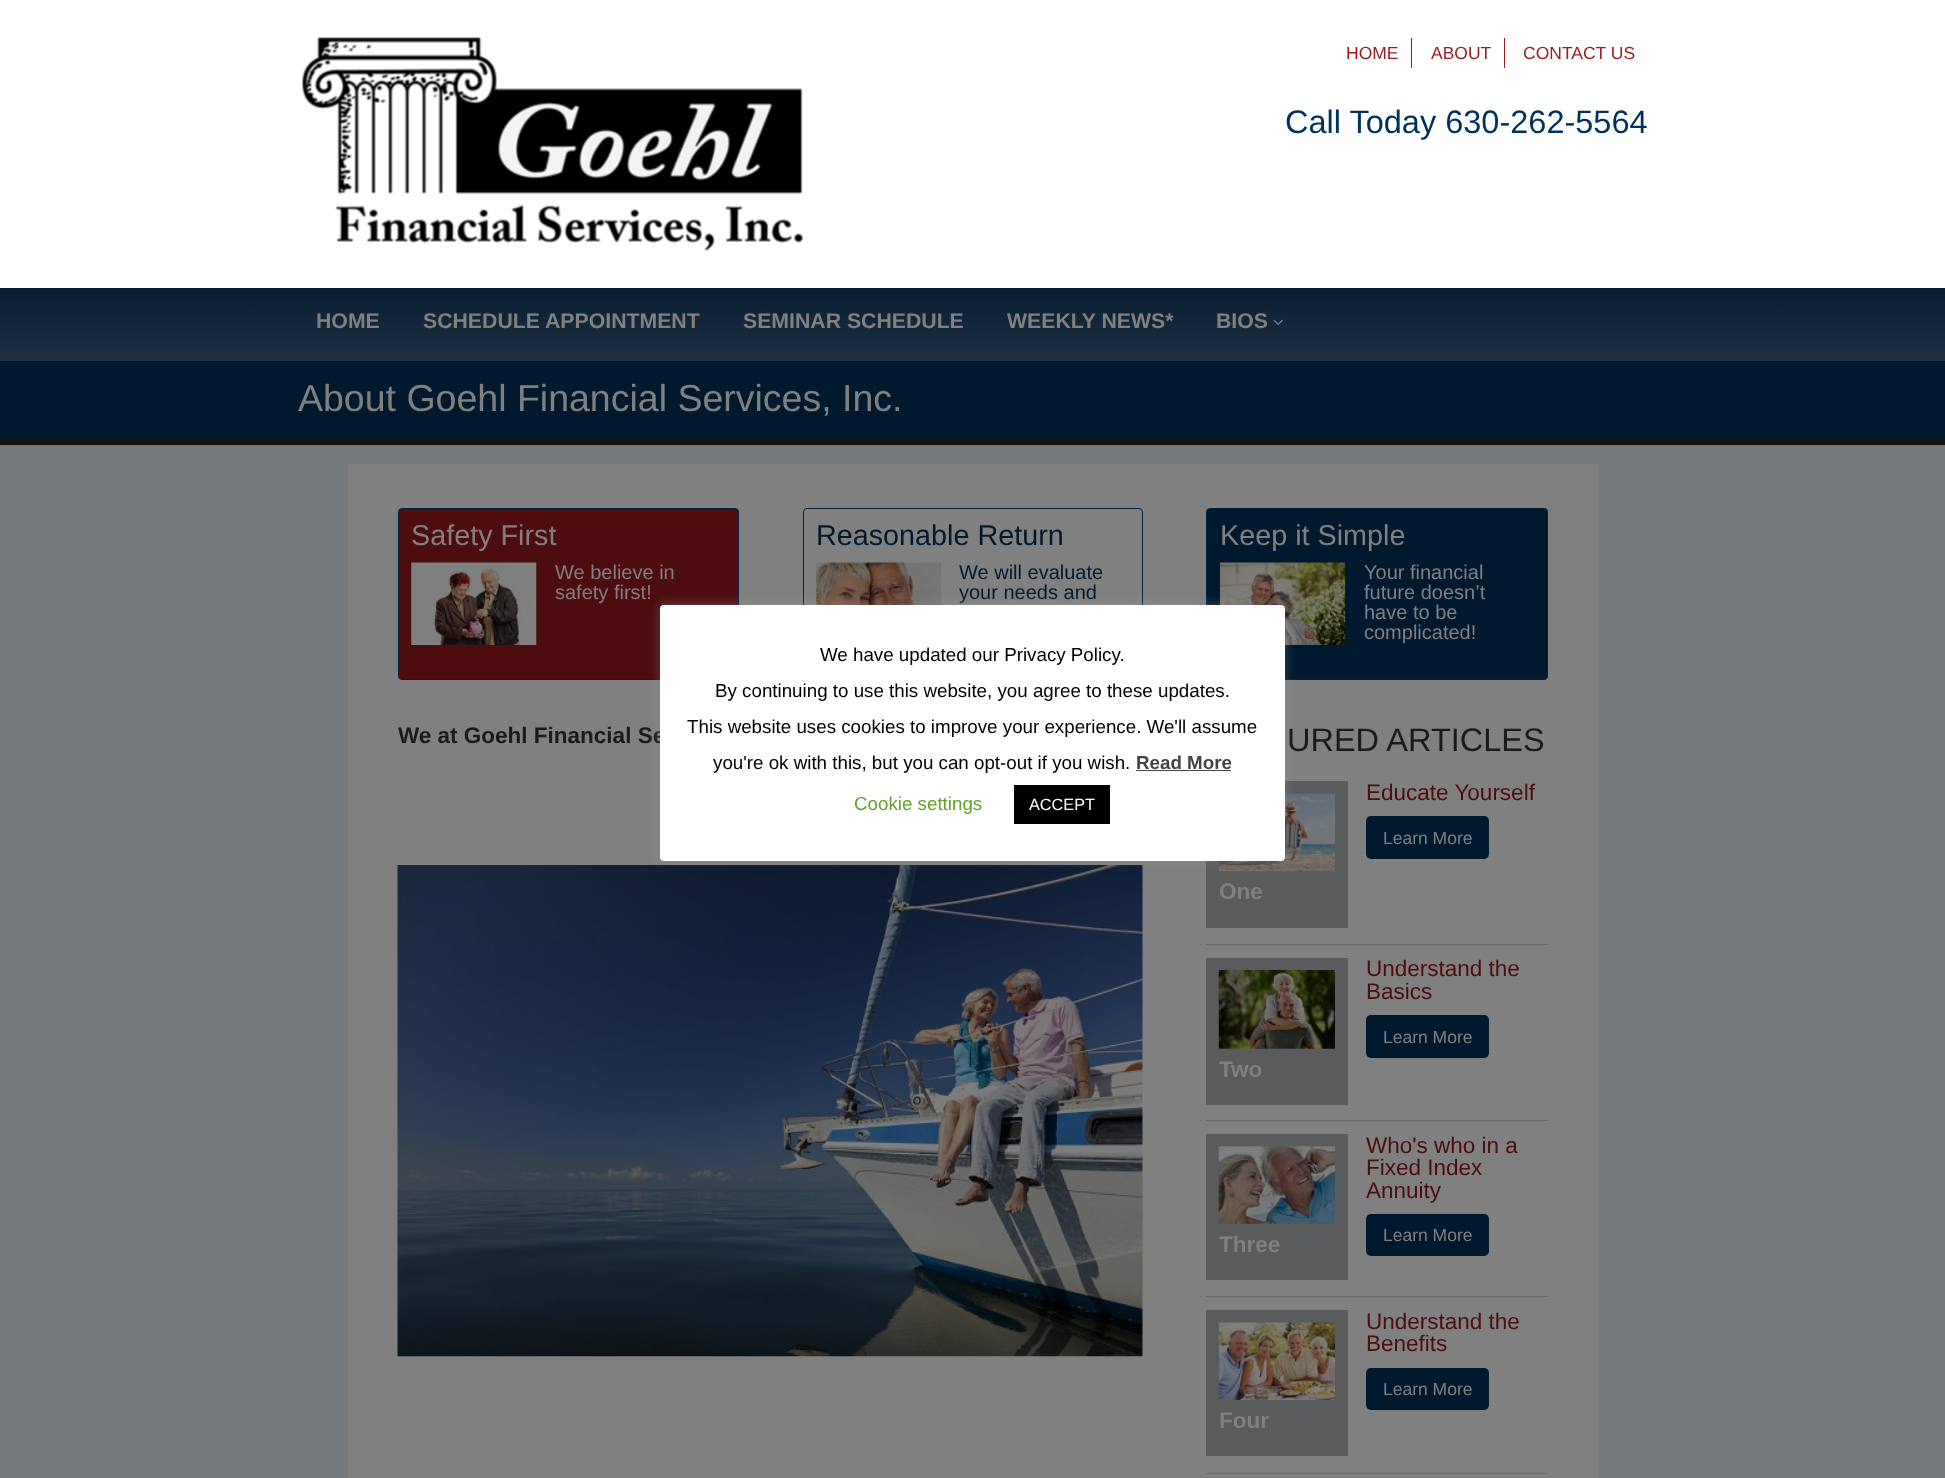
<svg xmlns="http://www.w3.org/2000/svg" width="1945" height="1478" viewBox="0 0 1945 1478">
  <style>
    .t1 { font: 17.5px Liberation Sans; fill: #9a1a1d; }
    .t2 { font: 32.5px Liberation Sans; fill: #00315e; }
    .t3 { font: bold 21.25px Liberation Sans; fill: #808080; }
    .t4 { font: 37.5px Liberation Sans; fill: #808080; }
    .t5 { font: 28.75px Liberation Sans; fill: #808080; }
    .t6 { font: 20px Liberation Sans; fill: #808080; }
    .t7 { font: 28.75px Liberation Sans; fill: #00192f; }
    .t8 { font: 20px Liberation Sans; fill: #00192f; }
    .t9 { font: bold 22.5px Liberation Sans; fill: #1a1a1a; }
    .t10 { font: 32.5px Liberation Sans; fill: #1a1a1a; }
    .t11 { font: 22.5px Liberation Sans; fill: #4d0d0f; }
    .t12 { font: 17.5px Liberation Sans; fill: #808080; }
    .t13 { font: bold 22.5px Liberation Sans; fill: #808080; }
    .t14 { font: 18.75px Liberation Sans; fill: #000; }
    .t15 { font: bold 18.75px Liberation Sans; fill: #444; }
    .t16 { font: 18.75px Liberation Sans; fill: #62a329; }
    .t17 { font: 16.25px Liberation Sans; fill: #fff; }
  </style>
  <defs>
    <linearGradient id="g1" gradientUnits="userSpaceOnUse" x1="973" y1="287" x2="973" y2="361"><stop offset="0" stop-color="#061d32"/><stop offset="1" stop-color="#1f3142"/></linearGradient>
  </defs>
  <rect width="100%" height="100%" fill="#76797b"/>
  <rect x="0" y="288" width="1945" height="1" fill="#051a2d"/>
  <rect x="0" y="0" width="1945" height="288" fill="#fff"/>
  <image x="302" y="37" width="501" height="214" href="images/1.png"/>
  <rect x="1411" y="38" width="1" height="30" fill="#9a1a1d"/>
  <text x="1346" y="59" class="t1">HOME</text>
  <rect x="1504" y="38" width="1" height="30" fill="#9a1a1d"/>
  <text x="1431" y="59" class="t1">ABOUT</text>
  <text x="1523" y="59" class="t1">CONTACT US</text>
  <text x="1285" y="133" class="t2">Call Today 630-262-5564</text>
  <rect x="0" y="289" width="1945" height="72" fill="url(#g1)"/>
  <rect x="0" y="361" width="1945" height="79" fill="#00192f"/>
  <text x="316" y="328" class="t3">HOME</text>
  <text x="423" y="328" class="t3">SCHEDULE APPOINTMENT</text>
  <text x="743" y="328" class="t3">SEMINAR SCHEDULE</text>
  <text x="1007" y="328" class="t3">WEEKLY NEWS*</text>
  <text x="1216" y="328" class="t3">BIOS</text>
  <image x="1273" y="319" width="10" height="6" href="images/2.png"/>
  <rect x="0" y="440" width="1945" height="5" fill="#111"/>
  <text x="298" y="411" class="t4">About Goehl Financial Services, Inc.</text>
  <rect x="348" y="464" width="1250" height="1014" fill="#808080"/>
  <rect x="398.5" y="508.5" width="340" height="171" rx="3.5" fill="#4d0d0f" stroke="#01233e"/>
  <text x="411" y="545" class="t5">Safety First</text>
  <image x="411" y="562" width="126" height="83" href="images/3.png"/>
  <text x="555" y="579" class="t6">We believe in</text>
  <text x="555" y="599" class="t6">safety first!</text>
  <rect x="803.5" y="508.5" width="339" height="171" rx="3.5" fill="none" stroke="#01233e"/>
  <text x="816" y="545" class="t7">Reasonable Return</text>
  <image x="816" y="562" width="126" height="43" href="images/4.png"/>
  <text x="959" y="579" class="t8">We will evaluate</text>
  <text x="959" y="599" class="t8">your needs and</text>
  <rect x="1206.5" y="508.5" width="341" height="171" rx="3.5" fill="#00192f" stroke="#01233e"/>
  <text x="1220" y="545" class="t5">Keep it Simple</text>
  <image x="1220" y="562" width="125" height="83" href="images/5.png"/>
  <text x="1364" y="579" class="t6">Your financial</text>
  <text x="1364" y="599" class="t6">future doesn’t</text>
  <text x="1364" y="619" class="t6">have to be</text>
  <text x="1364" y="639" class="t6">complicated!</text>
  <text x="398" y="743" class="t9">We at Goehl Financial Se</text>
  <image x="397" y="865" width="746" height="492" href="images/6.png"/>
  <text x="1287" y="751" class="t10">URED ARTICLES</text>
  <rect x="1206" y="944" width="342" height="1" fill="#696969"/>
  <text x="1366" y="800" class="t11">Educate Yourself</text>
  <rect x="1366" y="816" width="123" height="43" rx="5" fill="#00192f"/>
  <text x="1383" y="844" class="t12">Learn More</text>
  <rect x="1206" y="781" width="142" height="147" fill="#595b5c"/>
  <image x="1218" y="793" width="117" height="79" href="images/7.png"/>
  <text x="1219" y="899" class="t13">One</text>
  <rect x="1206" y="1120" width="342" height="1" fill="#696969"/>
  <text x="1366" y="976" class="t11">Understand the</text>
  <text x="1366" y="999" class="t11">Basics</text>
  <rect x="1366" y="1015" width="123" height="43" rx="5" fill="#00192f"/>
  <text x="1383" y="1043" class="t12">Learn More</text>
  <rect x="1206" y="958" width="142" height="147" fill="#595b5c"/>
  <image x="1218" y="970" width="117" height="79" href="images/8.png"/>
  <text x="1219" y="1077" class="t13">Two</text>
  <rect x="1206" y="1296" width="342" height="1" fill="#696969"/>
  <text x="1366" y="1153" class="t11">Who's who in a</text>
  <text x="1366" y="1175" class="t11">Fixed Index</text>
  <text x="1366" y="1198" class="t11">Annuity</text>
  <rect x="1206" y="1134" width="142" height="146" fill="#595b5c"/>
  <image x="1218" y="1146" width="117" height="78" href="images/9.png"/>
  <text x="1219" y="1252" class="t13">Three</text>
  <rect x="1366" y="1214" width="123" height="42" rx="5" fill="#00192f"/>
  <text x="1383" y="1241" class="t12">Learn More</text>
  <rect x="1206" y="1473" width="342" height="1" fill="#696969"/>
  <text x="1366" y="1329" class="t11">Understand the</text>
  <text x="1366" y="1351" class="t11">Benefits</text>
  <rect x="1366" y="1368" width="123" height="42" rx="5" fill="#00192f"/>
  <text x="1383" y="1395" class="t12">Learn More</text>
  <rect x="1206" y="1310" width="142" height="146" fill="#595b5c"/>
  <image x="1218" y="1322" width="117" height="78" href="images/10.png"/>
  <text x="1219" y="1428" class="t13">Four</text>
  <rect x="660" y="604" width="625" height="256" rx="4" fill="#acabab4d" filter="blur(6px)"/>
  <rect x="660" y="605" width="625" height="256" rx="4" fill="#fff"/>
  <text x="820" y="661" class="t14">We have updated our Privacy Policy.</text>
  <text x="715" y="697" class="t14">By continuing to use this website, you agree to these updates.</text>
  <text x="687" y="733" class="t14">This website uses cookies to improve your experience. We'll assume</text>
  <text x="713" y="769" class="t14">you're ok with this, but you can opt-out if you wish.</text>
  <text x="1136" y="769" class="t15">Read More</text>
  <rect x="1136" y="770" width="95" height="1" fill="#444"/>
  <text x="854" y="810" class="t16">Cookie settings</text>
  <rect x="1014" y="785" width="96" height="39" fill="#000"/>
  <text x="1029" y="810" class="t17">ACCEPT</text>
</svg>
